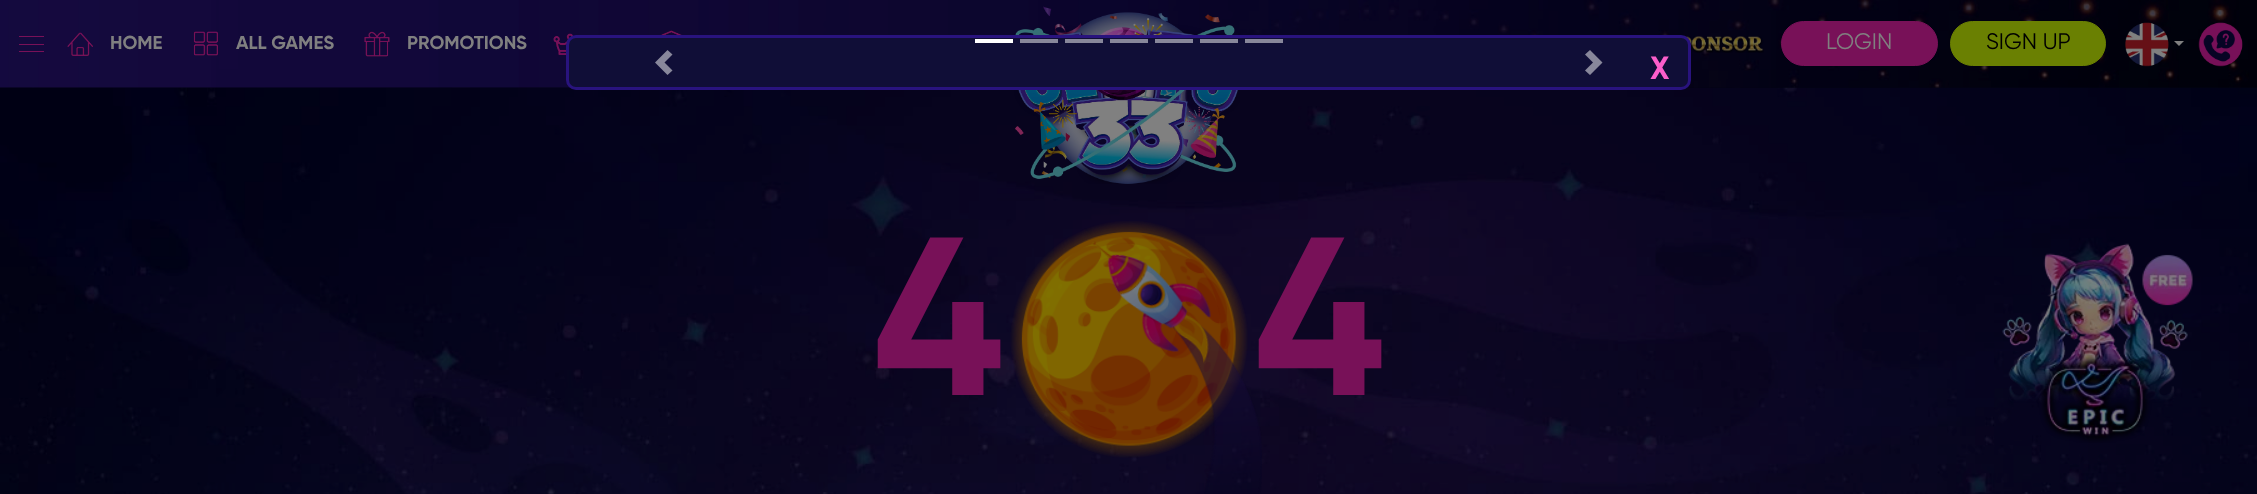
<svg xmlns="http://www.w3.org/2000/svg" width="2257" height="494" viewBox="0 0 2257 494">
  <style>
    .t1 { font: bold 18.75px Gilroy; fill: #808080; }
    .t2 { font: 22.5px Gilroy; fill: #808080; }
    .t3 { font: 22.5px Gilroy; fill: #000; }
    .t4 { font: bold 32px Gilroy; fill: #fb5eca; }
    .t5 { font: bold 225px Gilroy; fill: #781158; }
  </style>
  <rect width="100%" height="100%" fill="#fff"/>
  <image x="0" y="87" width="2257" height="1" href="images/11.png"/>
  <image x="0" y="87" width="2257" height="407" href="images/12.png"/>
  <image x="0" y="0" width="2257" height="88" href="images/1.png"/>
  <rect x="19" y="36" width="25" height="1" fill="#781158"/>
  <rect x="19" y="44" width="25" height="1" fill="#781158"/>
  <rect x="19" y="51" width="25" height="1" fill="#781158"/>
  <image x="660" y="30" width="22" height="5" href="images/2.png"/>
  <image x="67" y="32" width="26" height="24" href="images/3.png"/>
  <text x="110" y="49" class="t1">HOME</text>
  <image x="193" y="31" width="25" height="25" href="images/4.png"/>
  <text x="236" y="49" class="t1">ALL GAMES</text>
  <image x="364" y="31" width="26" height="26" href="images/5.png"/>
  <text x="407" y="49" class="t1">PROMOTIONS</text>
  <image x="553" y="33" width="20" height="22" href="images/6.png"/>
  <image x="1014" y="6" width="226" height="178" href="images/7.png"/>
  <image x="1685" y="36" width="79" height="17" href="images/8.png"/>
  <rect x="1781.5" y="21.5" width="156" height="44" rx="22" fill="#781158" stroke="#781158"/>
  <text x="1826" y="49" class="t2">LOGIN</text>
  <rect x="1950.5" y="21.5" width="155" height="44" rx="22" fill="#6a8002" stroke="#6a8002"/>
  <text x="1986" y="49" class="t3">SIGN UP</text>
  <image x="2125" y="22" width="44" height="45" href="images/9.png"/>
  <path d="M2174 41H2184L2179 46Z" fill="#808080"/>
  <image x="2198" y="22" width="45" height="45" href="images/10.png"/>
  <rect x="567.5" y="36.5" width="1122" height="52" rx="8.5" fill="#100e37" stroke="#29137e" stroke-width="3"/>
  <rect x="975" y="39" width="38" height="4" fill="#fff"/>
  <rect x="1020" y="39" width="38" height="4" fill="#88879b"/>
  <rect x="1065" y="39" width="38" height="4" fill="#88879b"/>
  <rect x="1110" y="39" width="38" height="4" fill="#88879b"/>
  <rect x="1155" y="39" width="38" height="4" fill="#88879b"/>
  <rect x="1200" y="39" width="38" height="4" fill="#88879b"/>
  <rect x="1245" y="39" width="38" height="4" fill="#88879b"/>
  <path d="M667.5 50L655 62.5L667.5 75L672.5 70.5L664.5 62.5L672.5 54.5Z" fill="#88879b"/>
  <path d="M1590 50L1585 54.5L1593 62.5L1585 70.5L1590 75L1602.5 62.5Z" fill="#88879b"/>
  <text x="1650" y="79" class="t4">X</text>
  <text x="873" y="395" class="t5">4</text>
  <image x="1010" y="221" width="238" height="237" href="images/13.png"/>
  <text x="1254" y="395" class="t5">4</text>
  <image x="1092" y="241" width="170" height="253" href="images/14.png"/>
  <image x="2002" y="243" width="191" height="200" href="images/15.png"/>
</svg>
